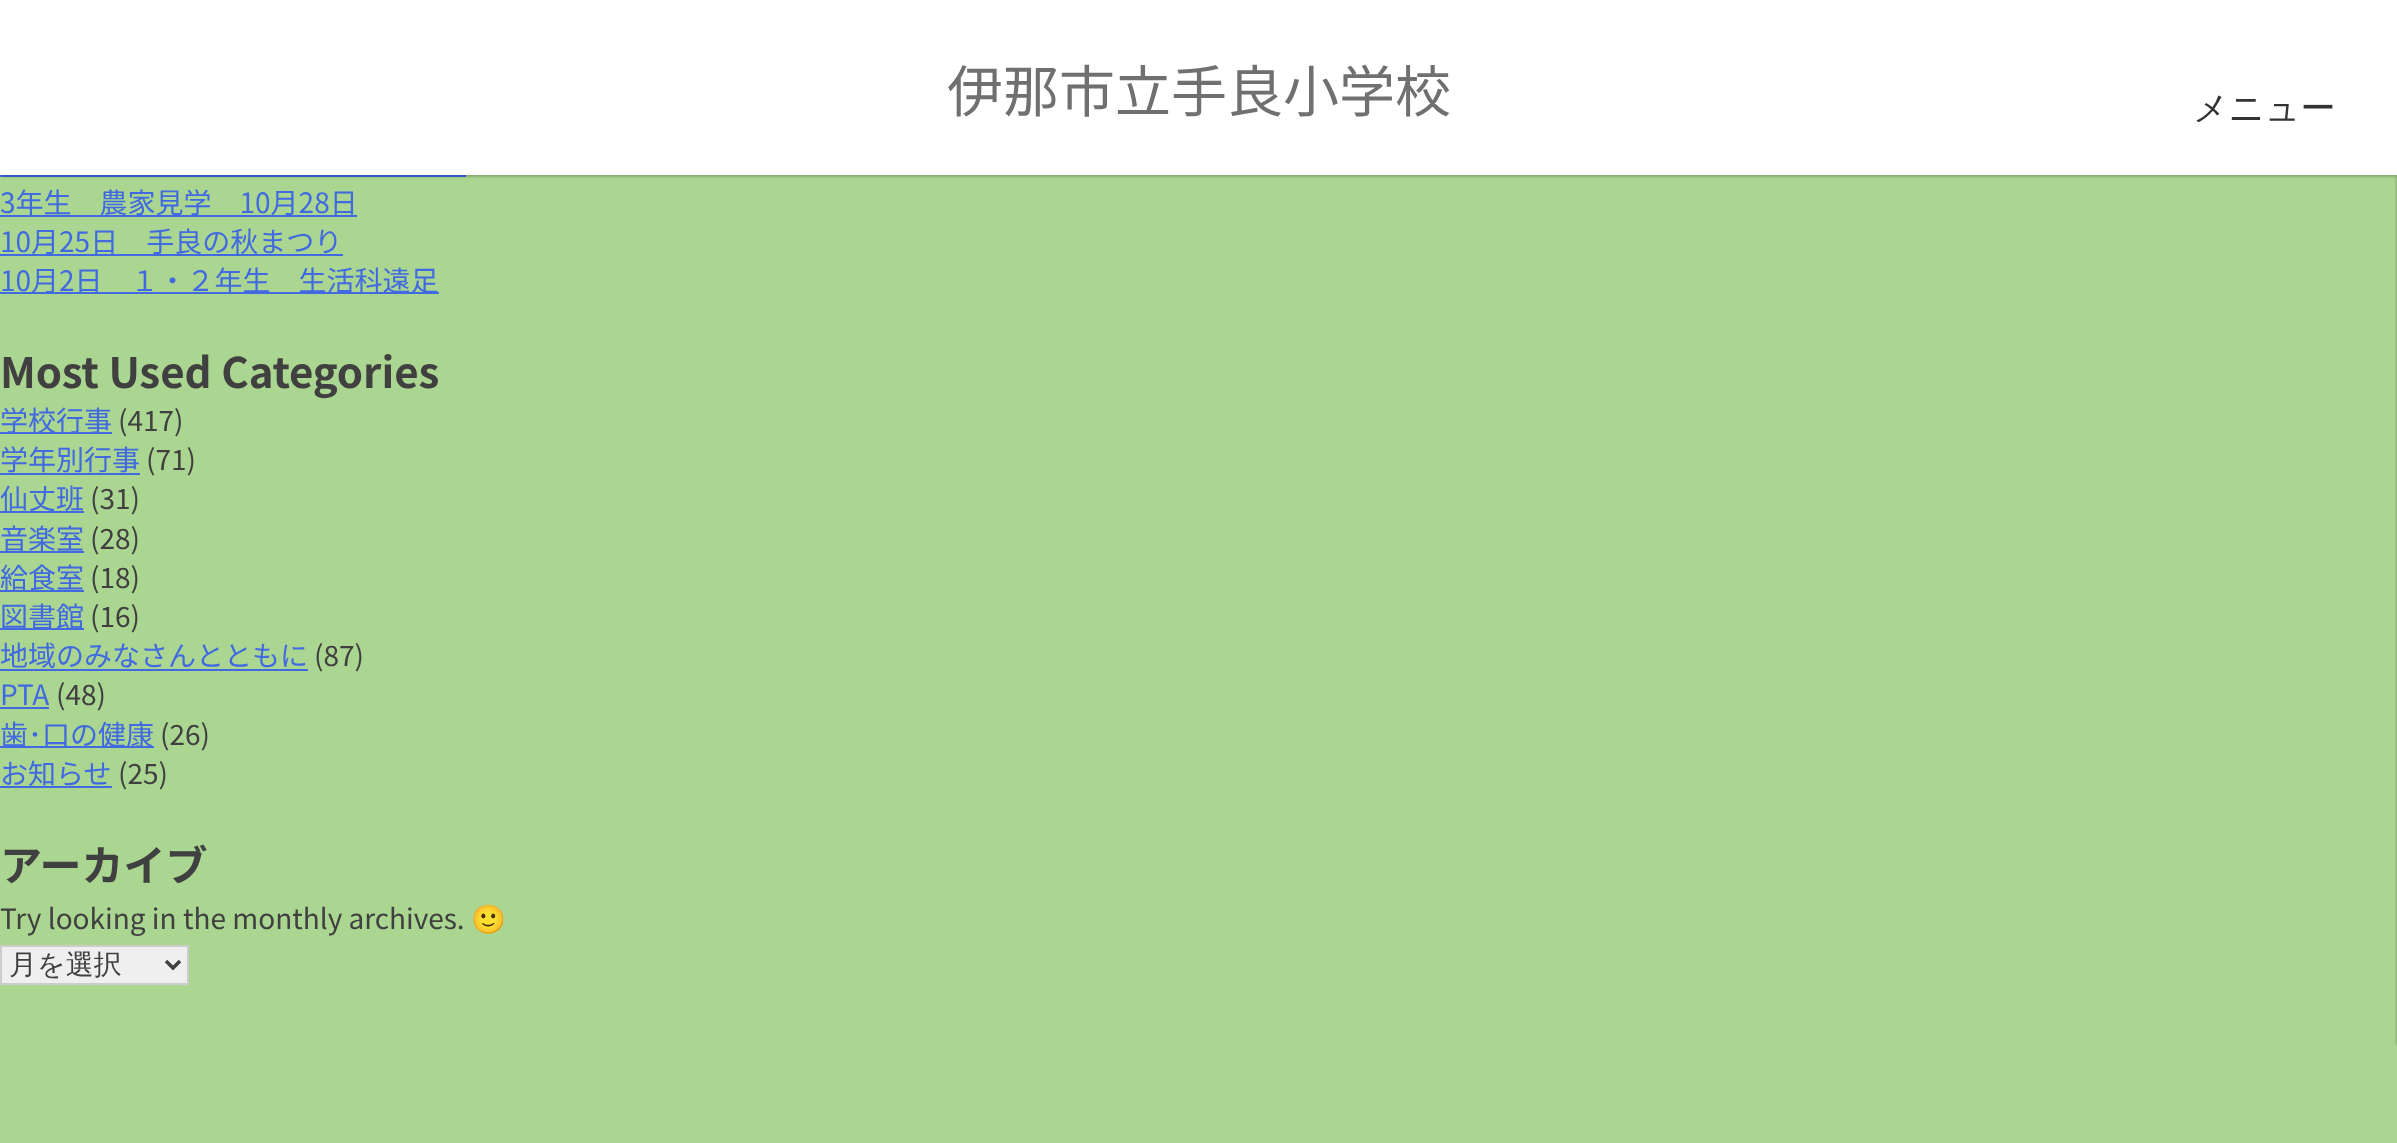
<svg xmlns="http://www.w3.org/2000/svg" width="2397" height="1143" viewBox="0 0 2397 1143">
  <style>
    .t1 { font: 56px Noto Sans JP; fill: #707070; }
    .t2 { font: 500 35px WenQuanYi Zen Hei; fill: #333; }
    .t3 { font: 28px Noto Sans JP; fill: #4169e1; }
    .t4 { font: bold 42px Noto Sans JP; fill: #404040; }
    .t5 { font: 28px Noto Sans JP; fill: #404040; }
    .t6 { font: 28px Noto Color Emoji; fill: #404040; }
    .t7 { font: 500 28px WenQuanYi Zen Hei; fill: #404040; }
  </style>
  <rect width="100%" height="100%" fill="#abd691"/>
  <rect x="0" y="175" width="466" height="2" fill="#4169e1"/>
  <rect x="2" y="2" width="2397" height="175" fill="#00000033" filter="blur(1px)"/>
  <rect x="0" y="0" width="2397" height="175" fill="#fff"/>
  <text x="947" y="112" class="t1">伊那市立手良小学校</text>
  <text x="2193" y="120" class="t2">メニュー</text>
  <rect x="2396" y="177" width="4" height="868" fill="#00000033" filter="blur(1px)"/>
  <rect x="0" y="215" width="357" height="2" fill="#4169e1"/>
  <text x="0" y="213" class="t3">3年生　農家見学　10月28日</text>
  <rect x="0" y="254" width="343" height="2" fill="#4169e1"/>
  <text x="0" y="252" class="t3">10月25日　手良の秋まつり</text>
  <rect x="0" y="292" width="439" height="2" fill="#4169e1"/>
  <text x="0" y="291" class="t3">10月2日　１・２年生　生活科遠足</text>
  <text x="0" y="388" class="t4">Most Used Categories</text>
  <rect x="0" y="432" width="112" height="2" fill="#4169e1"/>
  <text x="0" y="431" class="t3">学校行事</text>
  <text x="118" y="431" class="t5">(417)</text>
  <text x="0" y="470" class="t3">学年別行事</text>
  <rect x="0" y="473" width="140" height="2" fill="#4169e1"/>
  <text x="146" y="470" class="t5">(71)</text>
  <rect x="0" y="511" width="84" height="2" fill="#4169e1"/>
  <text x="0" y="509" class="t3">仙丈班</text>
  <text x="90" y="509" class="t5">(31)</text>
  <rect x="0" y="551" width="84" height="2" fill="#4169e1"/>
  <text x="0" y="549" class="t3">音楽室</text>
  <text x="90" y="549" class="t5">(28)</text>
  <rect x="0" y="590" width="84" height="2" fill="#4169e1"/>
  <text x="0" y="588" class="t3">給食室</text>
  <text x="90" y="588" class="t5">(18)</text>
  <rect x="0" y="628" width="84" height="2" fill="#4169e1"/>
  <text x="0" y="627" class="t3">図書館</text>
  <text x="90" y="627" class="t5">(16)</text>
  <text x="0" y="666" class="t3">地域のみなさんとともに</text>
  <rect x="0" y="669" width="308" height="2" fill="#4169e1"/>
  <text x="314" y="666" class="t5">(87)</text>
  <text x="0" y="705" class="t3">PTA</text>
  <rect x="0" y="707" width="49" height="2" fill="#4169e1"/>
  <text x="56" y="705" class="t5">(48)</text>
  <rect x="0" y="746" width="154" height="2" fill="#4169e1"/>
  <text x="0" y="745" class="t3">歯･口の健康</text>
  <text x="160" y="745" class="t5">(26)</text>
  <rect x="0" y="786" width="112" height="2" fill="#4169e1"/>
  <text x="0" y="784" class="t3">お知らせ</text>
  <text x="118" y="784" class="t5">(25)</text>
  <text x="0" y="881" class="t4">アーカイブ</text>
  <text x="0" y="929" class="t5">Try looking in the monthly archives.</text>
  <text x="471" y="929" class="t6">🙂</text>
  <rect x="1" y="946" width="187" height="38" fill="#efefef" stroke="#ccc" stroke-width="2"/>
  <path d="M166 961L173 968L180 961" fill="none" stroke="#404040" stroke-width="3.5"/>
  <text x="9" y="974" class="t7">月を選択</text>
</svg>
